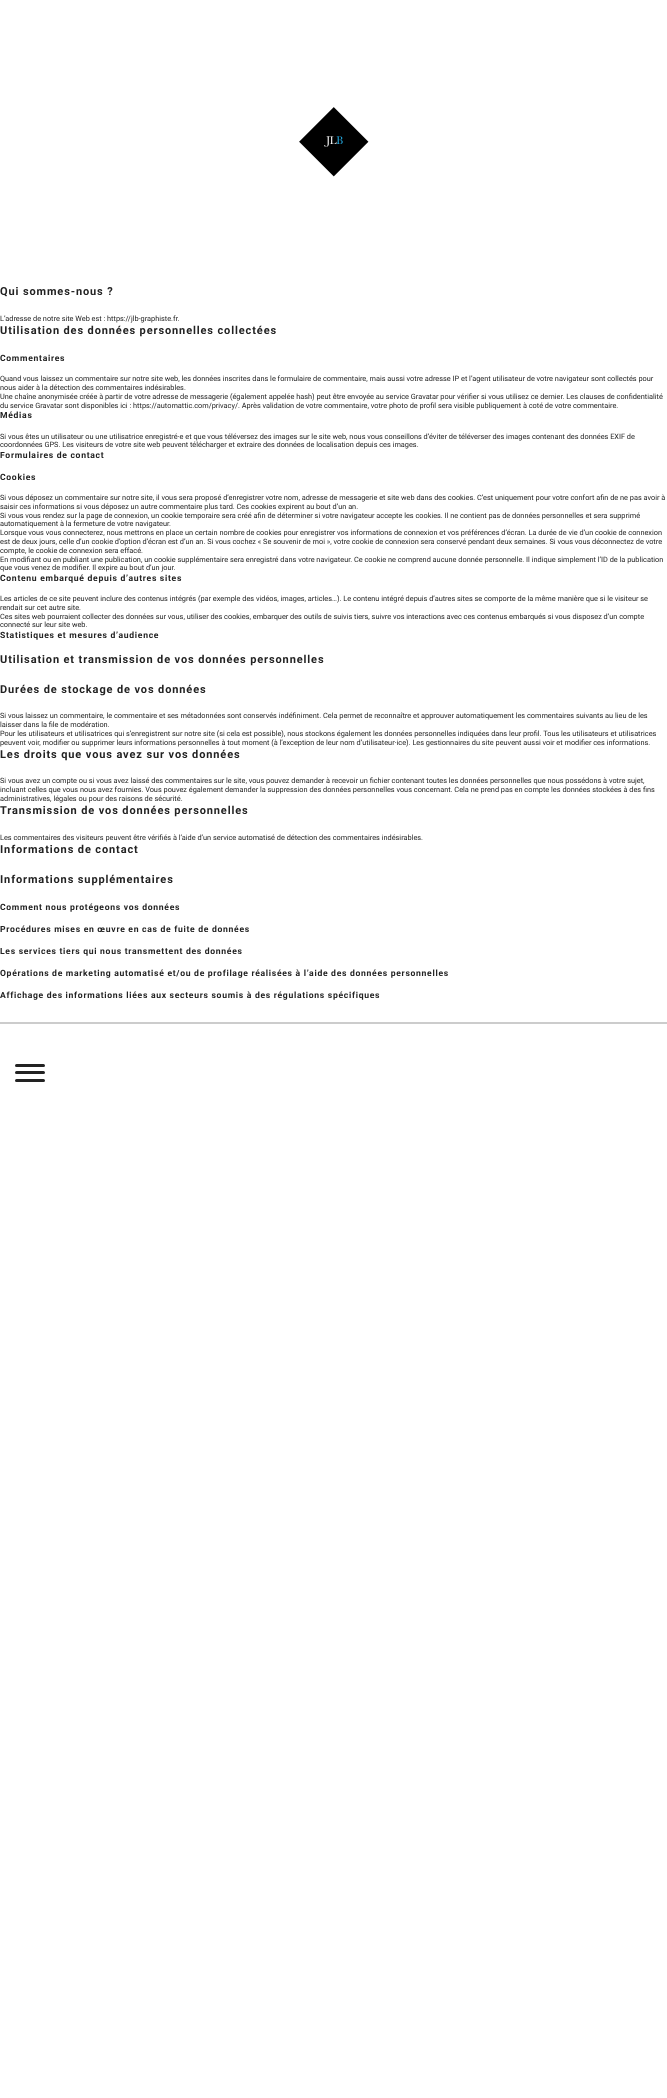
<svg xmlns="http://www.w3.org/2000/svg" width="667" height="2098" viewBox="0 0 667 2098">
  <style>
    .t1 { font: bold 11px Roboto; letter-spacing: 0.88px; fill: #222; }
    .t2 { font: 7.35px Roboto; fill: #222; }
    .t3 { font: bold 8.6px Roboto; letter-spacing: 0.7px; fill: #222; }
  </style>
  <rect width="100%" height="100%" fill="#fff"/>
  <image x="299" y="107" width="70" height="70" href="images/1.png"/>
  <text x="0" y="295" class="t1">Qui sommes-nous ?</text>
  <text x="0" y="321" class="t2">L’adresse de notre site Web est : https://jlb-graphiste.fr.</text>
  <text x="0" y="334" class="t1">Utilisation des données personnelles collectées</text>
  <text x="0" y="361" class="t3">Commentaires</text>
  <text x="0" y="381" class="t2">Quand vous laissez un commentaire sur notre site web, les données inscrites dans le formulaire de commentaire, mais aussi votre adresse IP et l’agent utilisateur de votre navigateur sont collectés pour</text>
  <text x="0" y="390" class="t2">nous aider à la détection des commentaires indésirables.</text>
  <text x="0" y="399" class="t2">Une chaîne anonymisée créée à partir de votre adresse de messagerie (également appelée hash) peut être envoyée au service Gravatar pour vérifier si vous utilisez ce dernier. Les clauses de confidentialité</text>
  <text x="0" y="408" class="t2">du service Gravatar sont disponibles ici : https://automattic.com/privacy/. Après validation de votre commentaire, votre photo de profil sera visible publiquement à coté de votre commentaire.</text>
  <text x="0" y="418" class="t3">Médias</text>
  <text x="0" y="439" class="t2">Si vous êtes un utilisateur ou une utilisatrice enregistré·e et que vous téléversez des images sur le site web, nous vous conseillons d’éviter de téléverser des images contenant des données EXIF de</text>
  <text x="0" y="447" class="t2">coordonnées GPS. Les visiteurs de votre site web peuvent télécharger et extraire des données de localisation depuis ces images.</text>
  <text x="0" y="458" class="t3">Formulaires de contact</text>
  <text x="0" y="480" class="t3">Cookies</text>
  <text x="0" y="500" class="t2">Si vous déposez un commentaire sur notre site, il vous sera proposé d’enregistrer votre nom, adresse de messagerie et site web dans des cookies. C’est uniquement pour votre confort afin de ne pas avoir à</text>
  <text x="0" y="509" class="t2">saisir ces informations si vous déposez un autre commentaire plus tard. Ces cookies expirent au bout d’un an.</text>
  <text x="0" y="518" class="t2">Si vous vous rendez sur la page de connexion, un cookie temporaire sera créé afin de déterminer si votre navigateur accepte les cookies. Il ne contient pas de données personnelles et sera supprimé</text>
  <text x="0" y="526" class="t2">automatiquement à la fermeture de votre navigateur.</text>
  <text x="0" y="535" class="t2">Lorsque vous vous connecterez, nous mettrons en place un certain nombre de cookies pour enregistrer vos informations de connexion et vos préférences d’écran. La durée de vie d’un cookie de connexion</text>
  <text x="0" y="544" class="t2">est de deux jours, celle d’un cookie d’option d’écran est d’un an. Si vous cochez « Se souvenir de moi », votre cookie de connexion sera conservé pendant deux semaines. Si vous vous déconnectez de votre</text>
  <text x="0" y="553" class="t2">compte, le cookie de connexion sera effacé.</text>
  <text x="0" y="562" class="t2">En modifiant ou en publiant une publication, un cookie supplémentaire sera enregistré dans votre navigateur. Ce cookie ne comprend aucune donnée personnelle. Il indique simplement l’ID de la publication</text>
  <text x="0" y="570" class="t2">que vous venez de modifier. Il expire au bout d’un jour.</text>
  <text x="0" y="581" class="t3">Contenu embarqué depuis d’autres sites</text>
  <text x="0" y="601" class="t2">Les articles de ce site peuvent inclure des contenus intégrés (par exemple des vidéos, images, articles…). Le contenu intégré depuis d’autres sites se comporte de la même manière que si le visiteur se</text>
  <text x="0" y="610" class="t2">rendait sur cet autre site.</text>
  <text x="0" y="619" class="t2">Ces sites web pourraient collecter des données sur vous, utiliser des cookies, embarquer des outils de suivis tiers, suivre vos interactions avec ces contenus embarqués si vous disposez d’un compte</text>
  <text x="0" y="627" class="t2">connecté sur leur site web.</text>
  <text x="0" y="638" class="t3">Statistiques et mesures d’audience</text>
  <text x="0" y="663" class="t1">Utilisation et transmission de vos données personnelles</text>
  <text x="0" y="693" class="t1">Durées de stockage de vos données</text>
  <text x="0" y="718" class="t2">Si vous laissez un commentaire, le commentaire et ses métadonnées sont conservés indéfiniment. Cela permet de reconnaître et approuver automatiquement les commentaires suivants au lieu de les</text>
  <text x="0" y="727" class="t2">laisser dans la file de modération.</text>
  <text x="0" y="736" class="t2">Pour les utilisateurs et utilisatrices qui s’enregistrent sur notre site (si cela est possible), nous stockons également les données personnelles indiquées dans leur profil. Tous les utilisateurs et utilisatrices</text>
  <text x="0" y="745" class="t2">peuvent voir, modifier ou supprimer leurs informations personnelles à tout moment (à l’exception de leur nom d’utilisateur·ice). Les gestionnaires du site peuvent aussi voir et modifier ces informations.</text>
  <text x="0" y="758" class="t1">Les droits que vous avez sur vos données</text>
  <text x="0" y="783" class="t2">Si vous avez un compte ou si vous avez laissé des commentaires sur le site, vous pouvez demander à recevoir un fichier contenant toutes les données personnelles que nous possédons à votre sujet,</text>
  <text x="0" y="792" class="t2">incluant celles que vous nous avez fournies. Vous pouvez également demander la suppression des données personnelles vous concernant. Cela ne prend pas en compte les données stockées à des fins</text>
  <text x="0" y="801" class="t2">administratives, légales ou pour des raisons de sécurité.</text>
  <text x="0" y="814" class="t1">Transmission de vos données personnelles</text>
  <text x="0" y="840" class="t2">Les commentaires des visiteurs peuvent être vérifiés à l’aide d’un service automatisé de détection des commentaires indésirables.</text>
  <text x="0" y="853" class="t1">Informations de contact</text>
  <text x="0" y="883" class="t1">Informations supplémentaires</text>
  <text x="0" y="910" class="t3">Comment nous protégeons vos données</text>
  <text x="0" y="932" class="t3">Procédures mises en œuvre en cas de fuite de données</text>
  <text x="0" y="954" class="t3">Les services tiers qui nous transmettent des données</text>
  <text x="0" y="976" class="t3">Opérations de marketing automatisé et/ou de profilage réalisées à l’aide des données personnelles</text>
  <text x="0" y="998" class="t3">Affichage des informations liées aux secteurs soumis à des régulations spécifiques</text>
  <rect x="0" y="1022" width="667" height="2" fill="#ccc"/>
  <rect x="15" y="1064" width="30" height="3" rx="1.5" fill="#222"/>
  <rect x="15" y="1071" width="30" height="3" rx="1.5" fill="#222"/>
  <rect x="15" y="1079" width="30" height="3" rx="1.5" fill="#222"/>
</svg>
